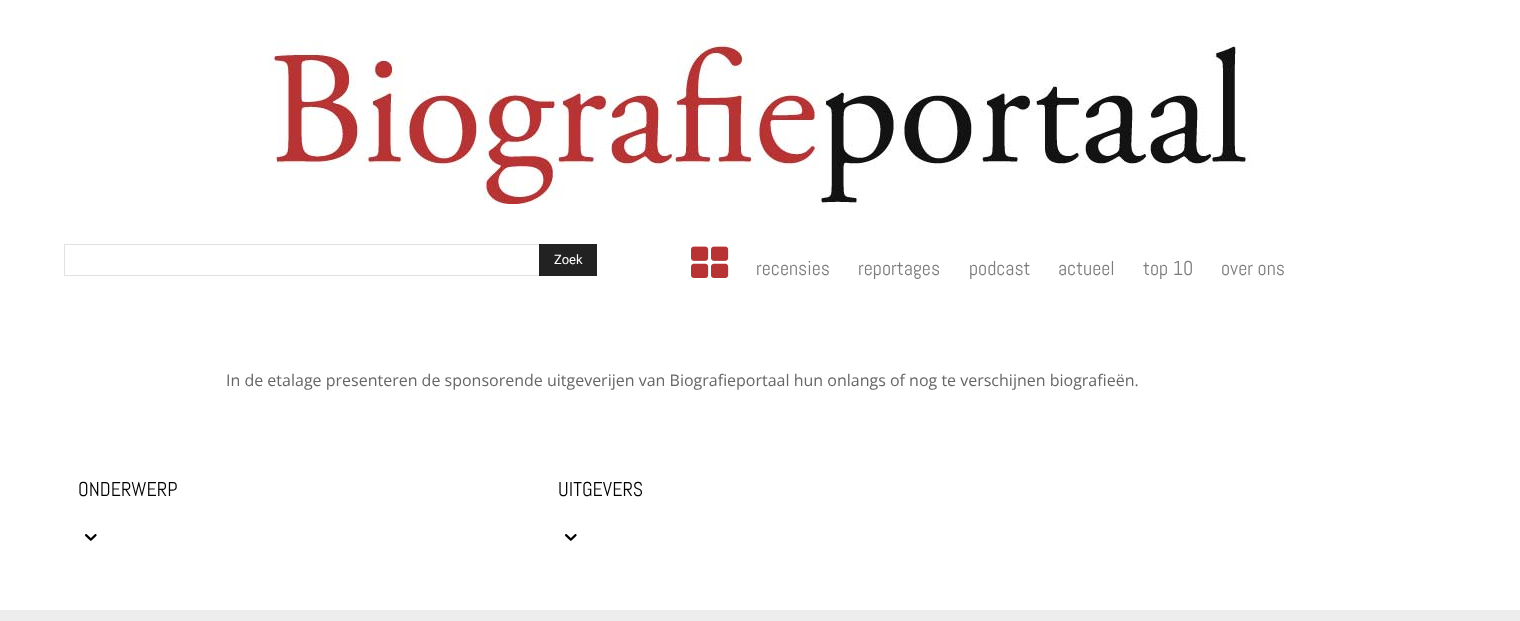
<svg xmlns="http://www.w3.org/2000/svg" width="1520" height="621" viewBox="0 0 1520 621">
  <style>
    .t1 { font: 13px Roboto; fill: #fff; }
    .t2 { font: 20px Abel; fill: #7c7c7c; }
    .t3 { font: 16px Open Sans; fill: #666; }
    .t4 { font: 20px Abel; fill: #000; }
  </style>
  <rect width="100%" height="100%" fill="#fff"/>
  <image x="268" y="40" width="984" height="164" href="images/1.png"/>
  <rect x="64.5" y="244.5" width="532" height="31" fill="none" stroke="#e1e1e1"/>
  <rect x="539" y="244" width="58" height="32" fill="#222"/>
  <text x="554" y="264" class="t1">Zoek</text>
  <image x="691" y="246" width="38" height="32" href="images/2.png"/>
  <text x="756" y="275" class="t2">recensies</text>
  <text x="858" y="275" class="t2">reportages</text>
  <text x="969" y="275" class="t2">podcast</text>
  <text x="1058" y="275" class="t2">actueel</text>
  <text x="1143" y="275" class="t2">top 10</text>
  <text x="1221" y="275" class="t2">over ons</text>
  <text x="226" y="386" class="t3">In de etalage presenteren de sponsorende uitgeverijen van Biografieportaal hun onlangs of nog te verschijnen biografieën.</text>
  <text x="78" y="496" class="t4">ONDERWERP</text>
  <image x="85" y="534" width="12" height="7" href="images/3.png"/>
  <text x="558" y="496" class="t4">UITGEVERS</text>
  <image x="565" y="534" width="12" height="7" href="images/3.png"/>
  <rect x="0" y="610" width="1520" height="11" fill="#ededed"/>
</svg>
